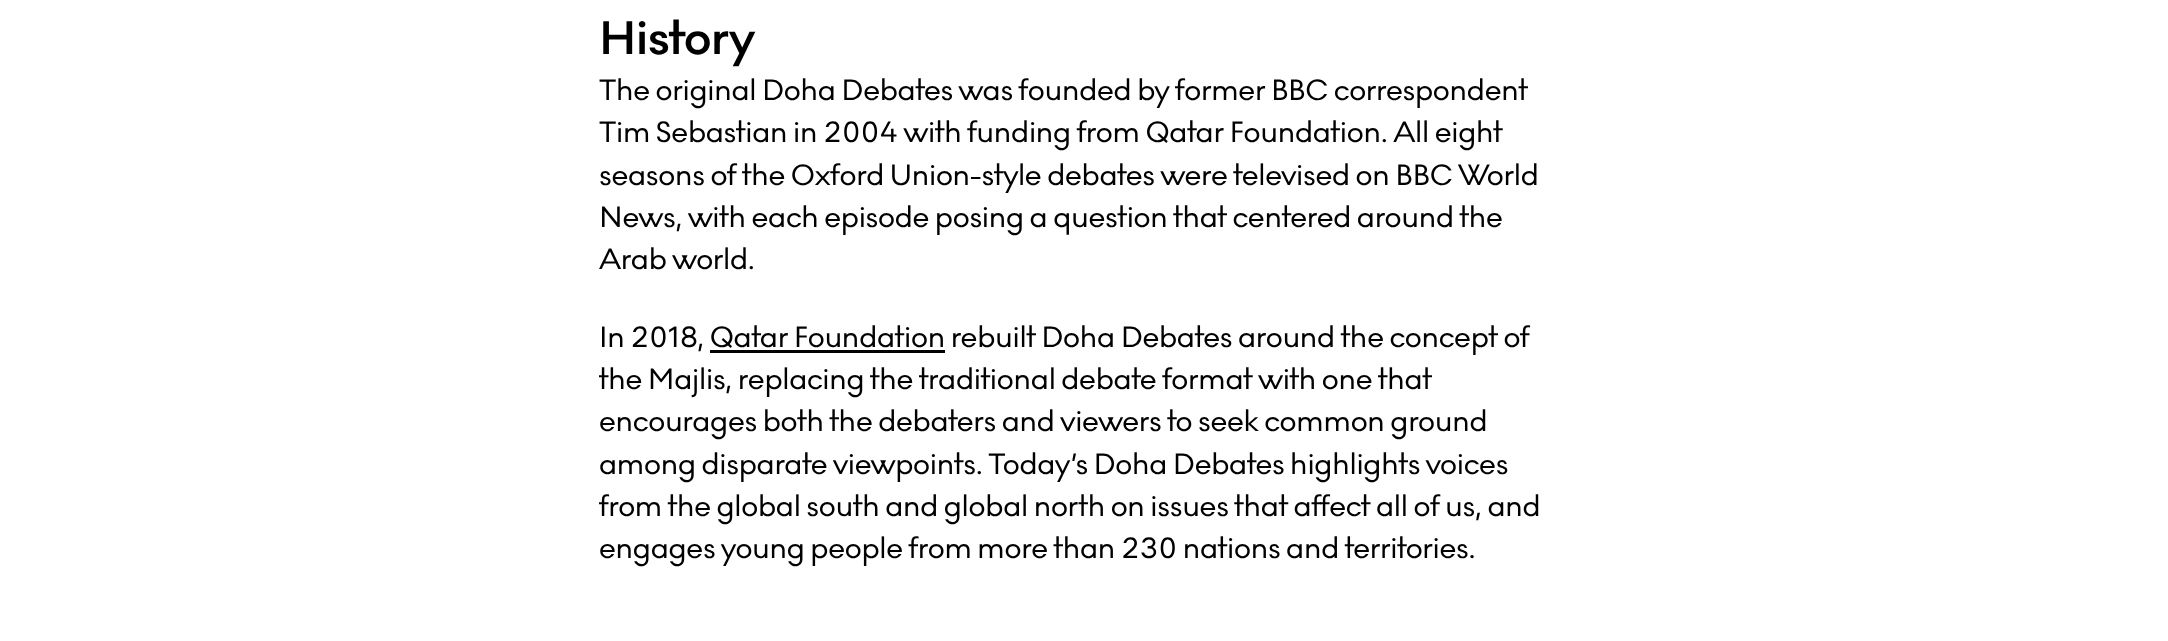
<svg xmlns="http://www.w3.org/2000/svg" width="2168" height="641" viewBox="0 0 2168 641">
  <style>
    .t1 { font: 600 48px 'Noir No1'; letter-spacing: -0.5px; fill: #000; }
    .t2 { font: 30.1px 'Noir No1'; letter-spacing: -0.3px; fill: #000; }
  </style>
  <rect width="100%" height="100%" fill="#fff"/>
  <text x="599" y="54" class="t1">History</text>
  <text x="599" y="100" class="t2">The original Doha Debates was founded by former BBC correspondent</text>
  <text x="599" y="142" class="t2">Tim Sebastian in 2004 with funding from Qatar Foundation. All eight</text>
  <text x="599" y="185" class="t2">seasons of the Oxford Union-style debates were televised on BBC World</text>
  <text x="599" y="227" class="t2">News, with each episode posing a question that centered around the</text>
  <text x="599" y="269" class="t2">Arab world.</text>
  <text x="599" y="347" class="t2">In 2018, Qatar Foundation rebuilt Doha Debates around the concept of</text>
  <rect x="710" y="350" width="235" height="3" fill="#000"/>
  <text x="599" y="389" class="t2">the Majlis, replacing the traditional debate format with one that</text>
  <text x="599" y="431" class="t2">encourages both the debaters and viewers to seek common ground</text>
  <text x="599" y="474" class="t2">among disparate viewpoints. Today’s Doha Debates highlights voices</text>
  <text x="599" y="516" class="t2">from the global south and global north on issues that affect all of us, and</text>
  <text x="599" y="558" class="t2">engages young people from more than 230 nations and territories.</text>
</svg>
